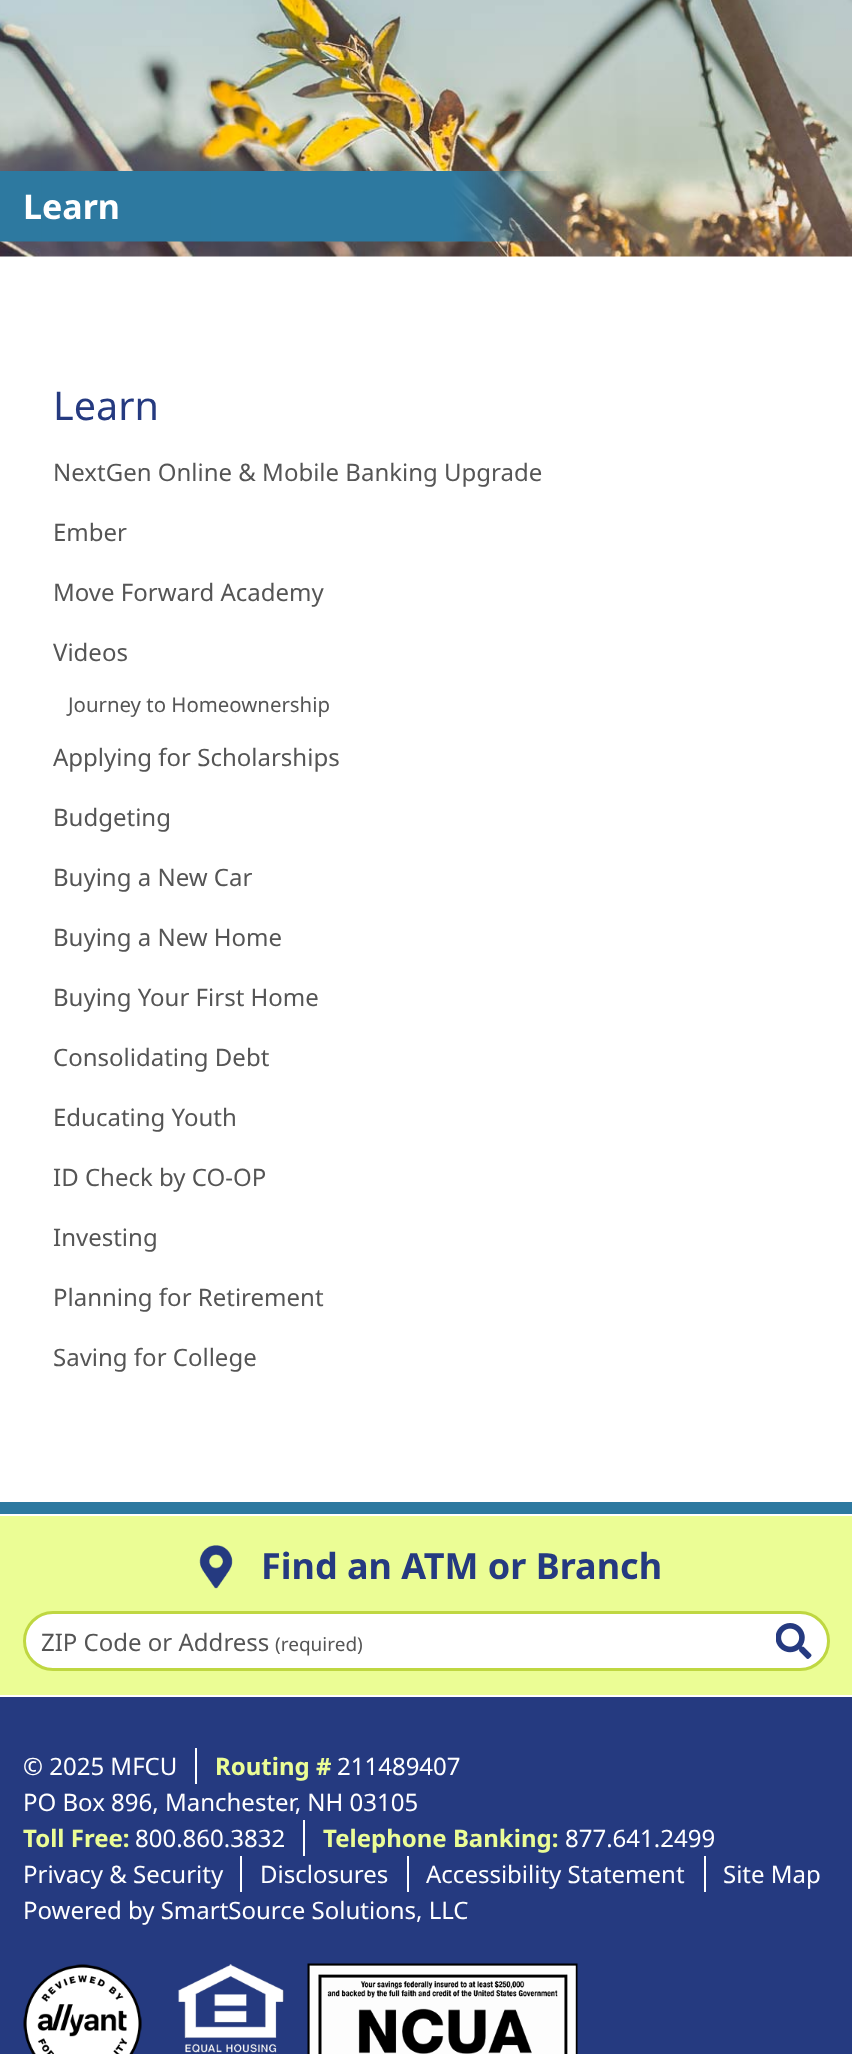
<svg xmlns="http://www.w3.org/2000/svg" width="852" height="2054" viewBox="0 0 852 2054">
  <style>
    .t1 { font: bold 34px Noto Sans; fill: #fff; }
    .t2 { font: 39.5px Noto Sans; fill: #253a80; }
    .t3 { font: 24px Noto Sans; fill: #555; }
    .t4 { font: 20.4px Noto Sans; fill: #555; }
    .t5 { font: bold 36px Noto Sans; fill: #253a80; }
    .t6 { font: 19px Noto Sans; fill: #555; }
    .t7 { font: 24px Noto Sans; fill: #fff; }
    .t8 { font: bold 24px Noto Sans; fill: #ebfd95; }
  </style>
  <rect width="100%" height="100%" fill="#fff"/>
  <rect x="0" y="1502" width="852" height="12" fill="#2d79a0"/>
  <image x="0" y="0" width="852" height="257" href="images/1.png"/>
  <image x="0" y="171" width="557" height="71" href="images/2.png"/>
  <text x="23" y="219" class="t1">Learn</text>
  <text x="53" y="420" class="t2">Learn</text>
  <text x="53" y="481" class="t3">NextGen Online &amp; Mobile Banking Upgrade</text>
  <text x="53" y="541" class="t3">Ember</text>
  <text x="53" y="601" class="t3">Move Forward Academy</text>
  <text x="53" y="661" class="t3">Videos</text>
  <text x="68" y="712" class="t4">Journey to Homeownership</text>
  <text x="53" y="766" class="t3">Applying for Scholarships</text>
  <text x="53" y="826" class="t3">Budgeting</text>
  <text x="53" y="886" class="t3">Buying a New Car</text>
  <text x="53" y="946" class="t3">Buying a New Home</text>
  <text x="53" y="1006" class="t3">Buying Your First Home</text>
  <text x="53" y="1066" class="t3">Consolidating Debt</text>
  <text x="53" y="1126" class="t3">Educating Youth</text>
  <text x="53" y="1186" class="t3">ID Check by CO-OP</text>
  <text x="53" y="1246" class="t3">Investing</text>
  <text x="53" y="1306" class="t3">Planning for Retirement</text>
  <text x="53" y="1366" class="t3">Saving for College</text>
  <rect x="0" y="1516" width="852" height="179" fill="#ebfd95"/>
  <image x="199" y="1545" width="34" height="44" href="images/3.png"/>
  <text x="261" y="1579" class="t5">Find an ATM or Branch</text>
  <rect x="24.5" y="1612.5" width="804" height="57" rx="28.5" fill="#fff" stroke="#bfd741" stroke-width="3"/>
  <text x="41" y="1651" class="t3">ZIP Code or Address</text>
  <text x="275" y="1651" class="t6">(required)</text>
  <image x="776" y="1623" width="36" height="36" href="images/4.png"/>
  <rect x="0" y="1697" width="852" height="357" fill="#253a80"/>
  <rect x="195" y="1748" width="2" height="36" fill="#fff"/>
  <text x="23" y="1775" class="t7">© 2025 MFCU</text>
  <text x="215" y="1775" class="t8">Routing #</text>
  <text x="337" y="1775" class="t7">211489407</text>
  <text x="23" y="1811" class="t7">PO Box 896, Manchester, NH 03105</text>
  <rect x="303" y="1820" width="2" height="36" fill="#fff"/>
  <text x="23" y="1847" class="t8">Toll Free:</text>
  <text x="135" y="1847" class="t7">800.860.3832</text>
  <text x="323" y="1847" class="t8">Telephone Banking:</text>
  <text x="565" y="1847" class="t7">877.641.2499</text>
  <rect x="240" y="1856" width="2" height="36" fill="#fff"/>
  <text x="23" y="1883" class="t7">Privacy &amp; Security</text>
  <rect x="407" y="1856" width="2" height="36" fill="#fff"/>
  <text x="260" y="1883" class="t7">Disclosures</text>
  <rect x="704" y="1856" width="2" height="36" fill="#fff"/>
  <text x="426" y="1883" class="t7">Accessibility Statement</text>
  <text x="723" y="1883" class="t7">Site Map</text>
  <text x="23" y="1919" class="t7">Powered by SmartSource Solutions, LLC</text>
  <image x="23" y="1964" width="119" height="90" href="images/5.png"/>
  <image x="178" y="1964" width="106" height="89" href="images/6.png"/>
  <image x="307" y="1963" width="271" height="91" href="images/7.png"/>
</svg>
